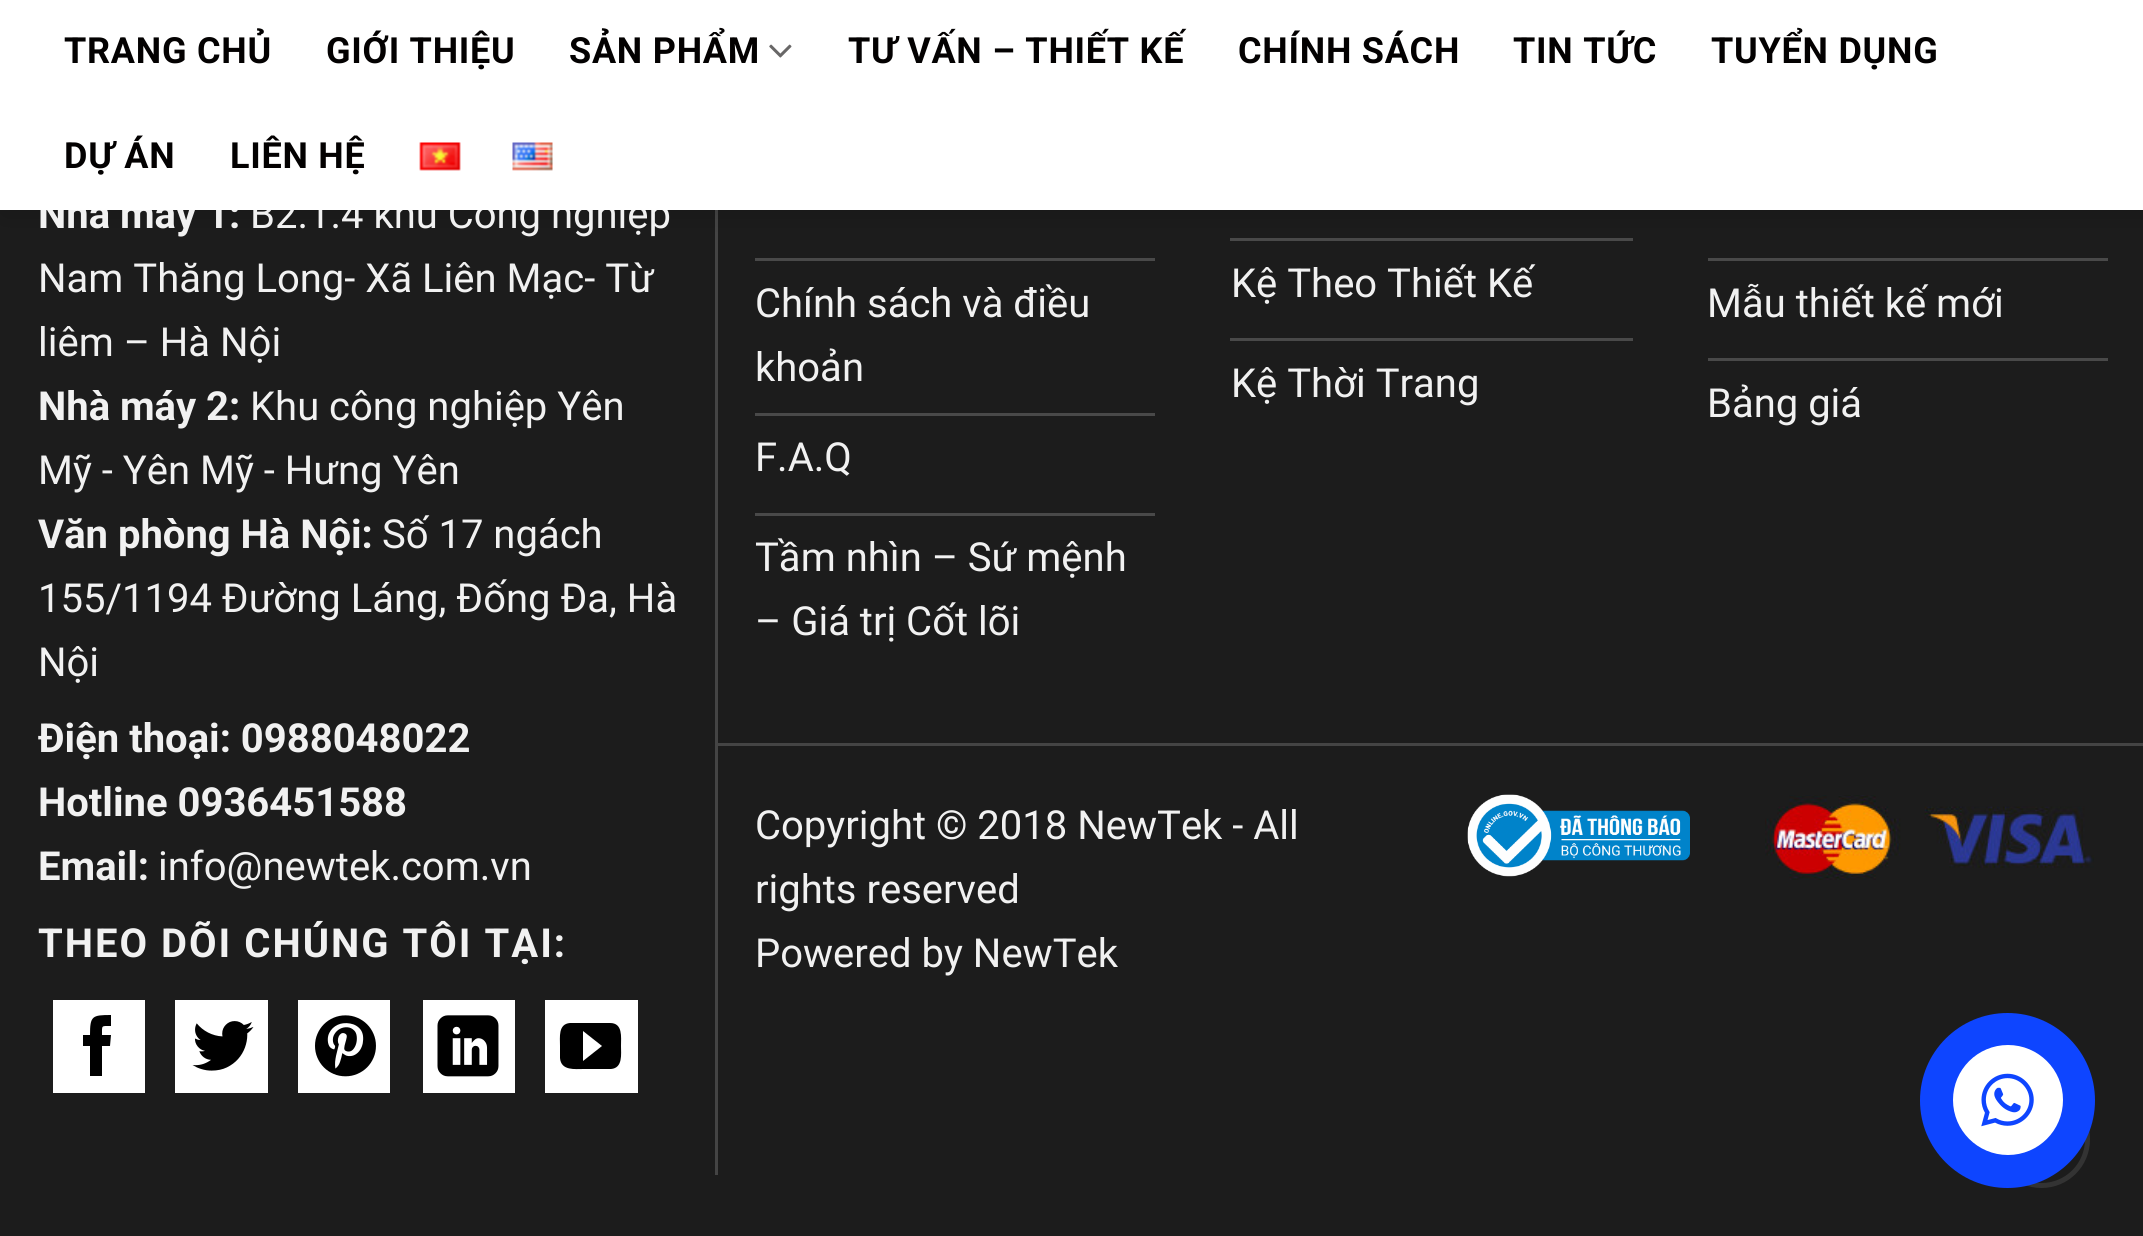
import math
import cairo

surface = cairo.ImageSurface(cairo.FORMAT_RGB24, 2143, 1236)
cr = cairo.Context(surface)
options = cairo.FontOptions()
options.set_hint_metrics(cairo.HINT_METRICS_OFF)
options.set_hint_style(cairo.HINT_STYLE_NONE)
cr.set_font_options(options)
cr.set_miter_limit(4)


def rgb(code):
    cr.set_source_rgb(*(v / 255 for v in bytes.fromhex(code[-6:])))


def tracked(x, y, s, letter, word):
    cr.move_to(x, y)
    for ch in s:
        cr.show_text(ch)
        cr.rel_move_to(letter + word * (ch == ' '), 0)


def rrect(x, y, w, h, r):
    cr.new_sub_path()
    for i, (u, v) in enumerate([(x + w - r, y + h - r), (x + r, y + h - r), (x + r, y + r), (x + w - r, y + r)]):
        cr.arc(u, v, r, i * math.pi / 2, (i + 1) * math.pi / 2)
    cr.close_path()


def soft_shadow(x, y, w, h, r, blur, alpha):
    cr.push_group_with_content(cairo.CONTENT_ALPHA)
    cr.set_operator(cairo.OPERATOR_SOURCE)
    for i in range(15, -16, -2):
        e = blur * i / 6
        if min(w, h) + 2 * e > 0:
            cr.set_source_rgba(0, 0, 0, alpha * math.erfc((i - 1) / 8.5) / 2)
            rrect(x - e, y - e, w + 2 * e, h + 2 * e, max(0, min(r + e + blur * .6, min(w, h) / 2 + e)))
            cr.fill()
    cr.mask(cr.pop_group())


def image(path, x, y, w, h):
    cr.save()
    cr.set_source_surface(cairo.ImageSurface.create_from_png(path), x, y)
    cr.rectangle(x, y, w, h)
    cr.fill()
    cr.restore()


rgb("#1c1c1c")
cr.paint()
rgb("#444444")
cr.rectangle(715, 210, 3, 965)
cr.fill()
rgb("#494949")
cr.rectangle(1230, 238, 403, 3)
cr.fill()
rgb("#000000")
soft_shadow(3, 3, 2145, 210, 0, 12.5, 0.15)
rgb("#ffffff")
cr.rectangle(53, 1000, 92, 93)
cr.fill()
rgb("#000000")
cr.new_path()
cr.move_to(102, 1076)
cr.line_to(90, 1076)
cr.line_to(90, 1046)
cr.line_to(83, 1046)
cr.line_to(83, 1035)
cr.line_to(90, 1035)
cr.curve_to(90, 1016, 92, 1015, 111, 1015)
cr.line_to(111, 1026)
cr.curve_to(101, 1026, 102, 1025, 102, 1035)
cr.line_to(111, 1035)
cr.line_to(110, 1046)
cr.line_to(102, 1046)
cr.close_path()
cr.fill()
rgb("#ffffff")
cr.rectangle(175, 1000, 93, 93)
cr.fill()
image("img/4.png", 192, 1021, 62, 50)
cr.rectangle(298, 1000, 92, 93)
cr.fill()
image("img/5.png", 315, 1015, 61, 62)
cr.rectangle(423, 1000, 92, 93)
cr.fill()
image("img/6.png", 437, 1015, 62, 62)
cr.rectangle(545, 1000, 93, 93)
cr.fill()
rgb("#000000")
cr.new_path()
cr.move_to(610, 1023)
cr.line_to(570, 1023)
cr.curve_to(558, 1024, 560, 1037, 560, 1046)
cr.line_to(560, 1058)
cr.curve_to(561, 1071, 575, 1069, 584, 1069)
cr.line_to(611, 1069)
cr.curve_to(623, 1068, 621, 1054, 621, 1046)
cr.curve_to(621, 1037, 623, 1023, 610, 1023)
cr.close_path()
cr.move_to(583, 1061)
cr.line_to(583, 1031)
cr.line_to(602, 1046)
cr.close_path()
cr.fill()
for x, y, w, h, color in [
    (755, 258, 400, 3, "#494949"),
    (755, 413, 400, 3, "#494949"),
    (755, 513, 400, 3, "#494949"),
    (1230, 338, 403, 3, "#494949"),
    (1708, 258, 400, 3, "#494949"),
    (1708, 358, 400, 3, "#494949"),
    (718, 743, 1425, 3, "#444444"),
]:
    rgb(color)
    cr.rectangle(x, y, w, h)
    cr.fill()
image("img/7.png", 1467, 794, 223, 83)
image("img/8.png", 1765, 795, 329, 85)
rrect(1995.5, 1092.5, 92, 93, 46)
rgb("#333333")
cr.set_line_width(5)
cr.stroke()
rgb("#0e45ff")
cr.arc(2007.5, 1100.5, 87.5, 0, 2 * math.pi)
cr.fill()
rgb("#ffffff")
cr.arc(2008, 1100, 55, 0, 2 * math.pi)
cr.fill()
image("img/9.png", 1981, 1073, 53, 54)
cr.select_font_face("Roboto", cairo.FONT_SLANT_NORMAL, cairo.FONT_WEIGHT_BOLD)
cr.set_font_size(40)
rgb("#f1f1f1")
cr.move_to(38, 228)
cr.show_text("Nhà máy 1:")
cr.select_font_face("Roboto")
cr.move_to(250, 228)
cr.show_text("B2.1.4 khu Công nghiệp")
rgb("#ffffff")
cr.rectangle(0, 0, 2143, 210)
cr.fill()
image("img/3.png", 512, 142, 41, 29)
image("img/2.png", 419, 142, 42, 29)
cr.select_font_face("Roboto", cairo.FONT_SLANT_NORMAL, cairo.FONT_WEIGHT_BOLD)
cr.set_font_size(36)
rgb("#030101")
for x, y, s in [
    (230, 168, "LIÊN HỆ"),
    (64, 168, "DỰ ÁN"),
    (1711, 63, "TUYỂN DỤNG"),
    (1513, 63, "TIN TỨC"),
    (1238, 63, "CHÍNH SÁCH"),
    (848, 63, "TƯ VẤN – THIẾT KẾ"),
]:
    tracked(x, y, s, 0.75, 0)
image("img/1.png", 769, 44, 23, 14)
for x, y, s in [
    (569, 63, "SẢN PHẨM"),
    (326, 63, "GIỚI THIỆU"),
    (64, 63, "TRANG CHỦ"),
]:
    tracked(x, y, s, 0.75, 0)
cr.select_font_face("Roboto")
cr.set_font_size(40)
rgb("#f1f1f1")
cr.move_to(38, 292)
cr.show_text("Nam Thăng Long- Xã Liên Mạc- Từ")
cr.move_to(38, 356)
cr.show_text("liêm – Hà Nội")
cr.select_font_face("Roboto", cairo.FONT_SLANT_NORMAL, cairo.FONT_WEIGHT_BOLD)
cr.move_to(38, 420)
cr.show_text("Nhà máy 2:")
cr.select_font_face("Roboto")
cr.move_to(250, 420)
cr.show_text("Khu công nghiệp Yên")
cr.move_to(38, 484)
cr.show_text("Mỹ - Yên Mỹ - Hưng Yên")
cr.select_font_face("Roboto", cairo.FONT_SLANT_NORMAL, cairo.FONT_WEIGHT_BOLD)
cr.move_to(38, 548)
cr.show_text("Văn phòng Hà Nội:")
cr.select_font_face("Roboto")
for x, y, s in [
    (382, 548, "Số 17 ngách"),
    (38, 612, "155/1194 Đường Láng, Đống Đa, Hà"),
    (38, 676, "Nội"),
]:
    cr.move_to(x, y)
    cr.show_text(s)
cr.select_font_face("Roboto", cairo.FONT_SLANT_NORMAL, cairo.FONT_WEIGHT_BOLD)
for x, y, s in [
    (38, 752, "Điện thoại: 0988048022"),
    (38, 816, "Hotline 0936451588"),
    (38, 880, "Email:"),
]:
    cr.move_to(x, y)
    cr.show_text(s)
cr.select_font_face("Roboto")
cr.move_to(158, 880)
cr.show_text("info@newtek.com.vn")
cr.select_font_face("Roboto", cairo.FONT_SLANT_NORMAL, cairo.FONT_WEIGHT_BOLD)
tracked(38, 957, "THEO DÕI CHÚNG TÔI TẠI:", 2, 0)
cr.select_font_face("Roboto")
for x, y, s in [
    (755, 317, "Chính sách và điều"),
    (755, 381, "khoản"),
    (755, 471, "F.A.Q"),
    (755, 571, "Tầm nhìn – Sứ mệnh"),
    (755, 635, "– Giá trị Cốt lõi"),
    (1231, 297, "Kệ Theo Thiết Kế"),
    (1231, 397, "Kệ Thời Trang"),
    (1707, 317, "Mẫu thiết kế mới"),
    (1707, 417, "Bảng giá"),
    (755, 839, "Copyright © 2018 NewTek - All"),
    (755, 903, "rights reserved"),
    (755, 967, "Powered by NewTek"),
]:
    cr.move_to(x, y)
    cr.show_text(s)
surface.write_to_png("page.png")
